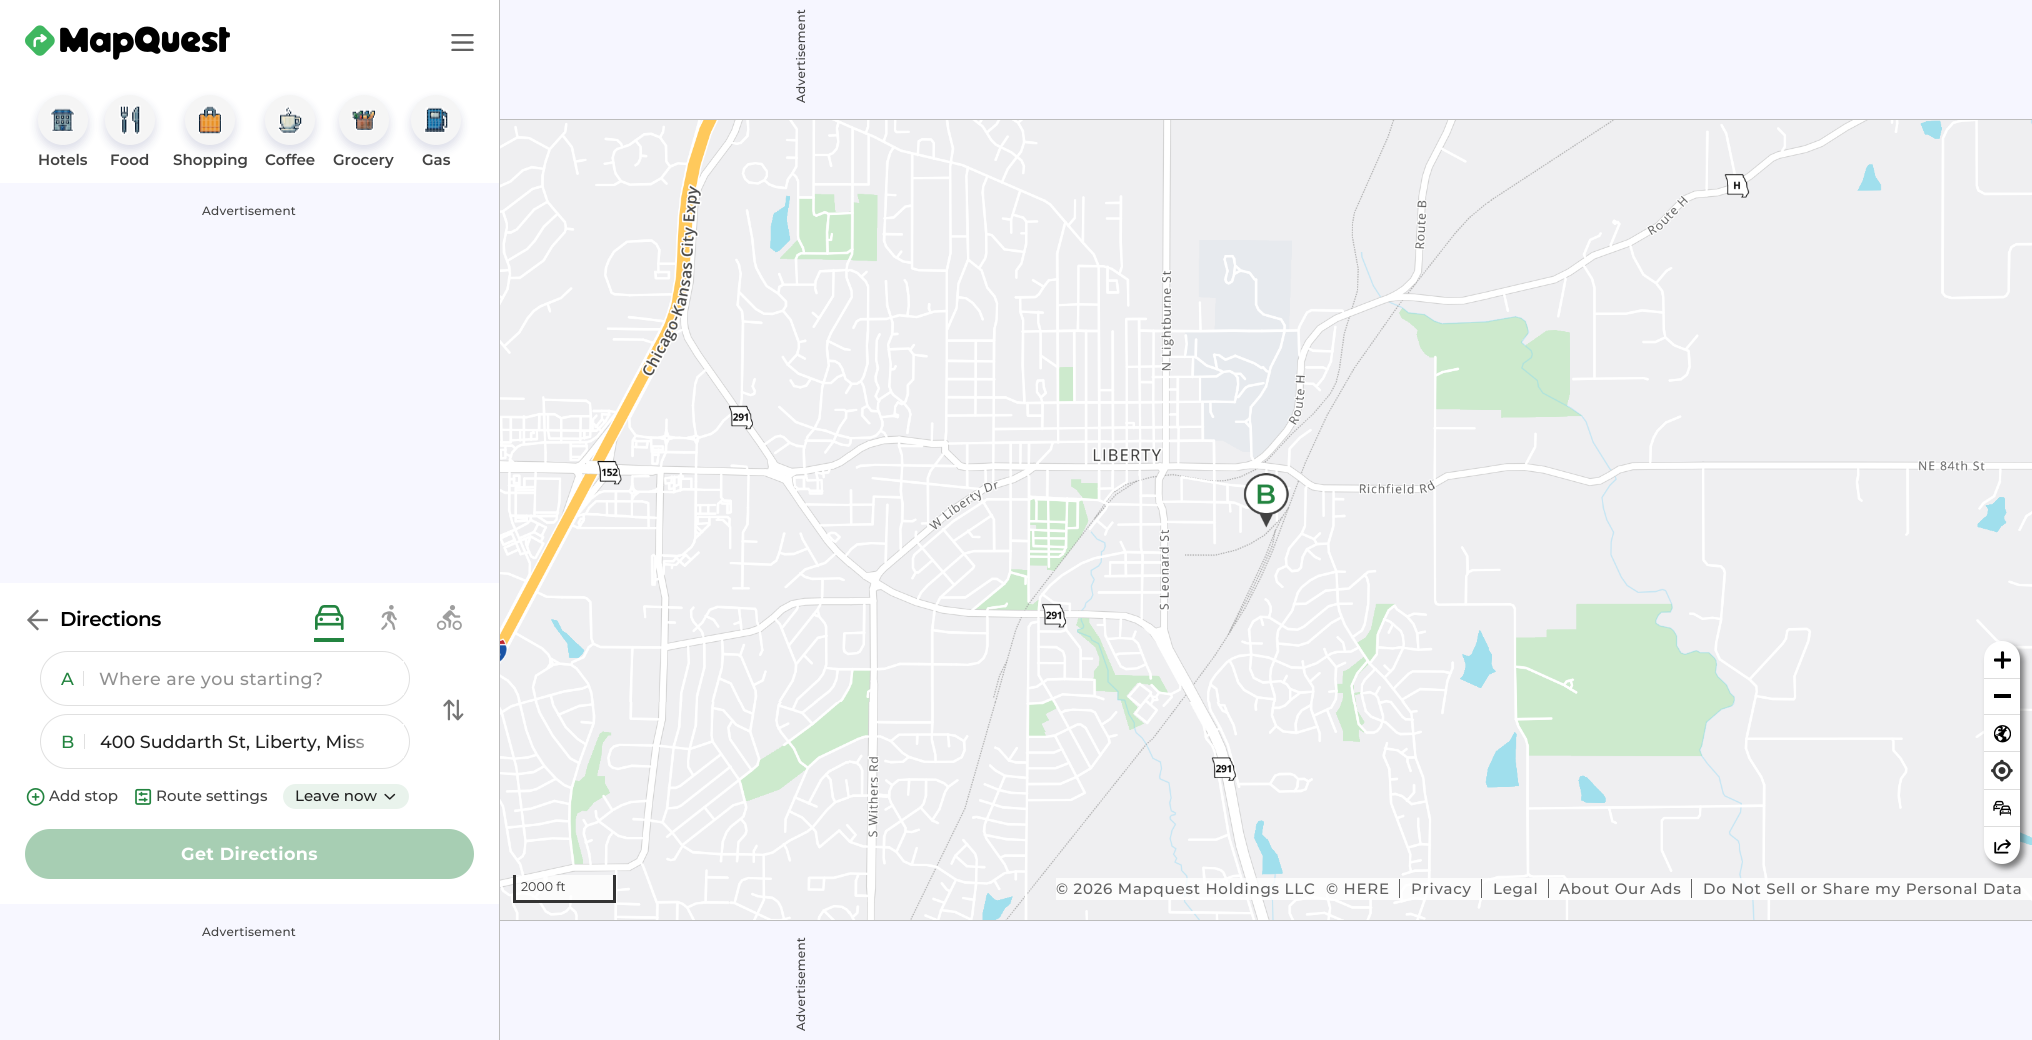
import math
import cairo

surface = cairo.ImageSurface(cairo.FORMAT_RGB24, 2032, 1040)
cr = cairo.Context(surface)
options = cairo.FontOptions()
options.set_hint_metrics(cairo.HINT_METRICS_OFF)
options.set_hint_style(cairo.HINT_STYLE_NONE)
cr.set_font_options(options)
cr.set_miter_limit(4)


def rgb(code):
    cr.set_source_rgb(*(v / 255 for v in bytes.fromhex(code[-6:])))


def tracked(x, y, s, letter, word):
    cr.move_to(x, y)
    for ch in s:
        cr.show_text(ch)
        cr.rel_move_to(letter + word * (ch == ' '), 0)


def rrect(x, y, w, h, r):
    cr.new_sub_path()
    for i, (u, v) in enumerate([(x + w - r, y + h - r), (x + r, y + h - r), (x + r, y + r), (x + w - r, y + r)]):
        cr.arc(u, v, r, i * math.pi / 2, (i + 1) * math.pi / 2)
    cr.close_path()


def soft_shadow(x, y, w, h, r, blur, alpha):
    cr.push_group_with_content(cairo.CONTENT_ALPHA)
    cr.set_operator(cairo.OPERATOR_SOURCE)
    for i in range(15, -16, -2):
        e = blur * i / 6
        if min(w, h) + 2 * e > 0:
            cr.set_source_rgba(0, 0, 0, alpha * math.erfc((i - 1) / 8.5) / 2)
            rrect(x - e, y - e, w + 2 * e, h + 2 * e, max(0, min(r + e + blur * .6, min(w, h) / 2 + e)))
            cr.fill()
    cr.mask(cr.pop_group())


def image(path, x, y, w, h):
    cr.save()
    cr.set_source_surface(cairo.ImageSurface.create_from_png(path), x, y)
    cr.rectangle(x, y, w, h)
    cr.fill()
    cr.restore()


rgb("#ffffff")
cr.paint()
for x, y, w, h, color in [
    (500, 0, 1532, 119, "#f6f6ff"),
    (500, 119, 1532, 1, "#bdbdbd"),
    (499, 0, 1, 1040, "#bdbdbd"),
]:
    rgb(color)
    cr.rectangle(x, y, w, h)
    cr.fill()
image("img/1.png", 25, 25, 205, 35)
image("img/2.png", 451, 34, 23, 17)
rgb("#0d1660")
soft_shadow(38, 100, 50, 50, 25, 5, 0.15)
rgb("#f5f5f5")
cr.arc(63, 120, 25, 0, 2 * math.pi)
cr.fill()
image("img/3.png", 50, 108, 25, 24)
rgb("#0d1660")
soft_shadow(105, 100, 50, 50, 25, 5, 0.15)
rgb("#f5f5f5")
cr.arc(130, 120, 25, 0, 2 * math.pi)
cr.fill()
image("img/4.png", 119, 105, 22, 30)
rgb("#0d1660")
soft_shadow(185, 100, 50, 50, 25, 5, 0.15)
rgb("#f5f5f5")
cr.arc(210, 120, 25, 0, 2 * math.pi)
cr.fill()
image("img/5.png", 198, 106, 24, 28)
rgb("#0d1660")
soft_shadow(265, 100, 50, 50, 25, 5, 0.15)
rgb("#f5f5f5")
cr.arc(290, 120, 25, 0, 2 * math.pi)
cr.fill()
image("img/6.png", 278, 106, 24, 28)
rgb("#0d1660")
soft_shadow(339, 100, 50, 50, 25, 5, 0.15)
rgb("#f5f5f5")
cr.arc(364, 120, 25, 0, 2 * math.pi)
cr.fill()
image("img/7.png", 351, 109, 25, 22)
rgb("#0d1660")
soft_shadow(411, 100, 50, 50, 25, 5, 0.15)
rgb("#f5f5f5")
cr.arc(436, 120, 25, 0, 2 * math.pi)
cr.fill()
image("img/8.png", 424, 107, 25, 26)
rgb("#f7f7ff")
cr.rectangle(0, 183, 499, 400)
cr.fill()
image("img/9.png", 27, 609, 21, 22)
rgb("#238440")
cr.rectangle(314, 638, 30, 4)
cr.fill()
image("img/10.png", 315, 605, 29, 25)
image("img/11.png", 381, 605, 16, 25)
image("img/12.png", 436, 605, 26, 25)
rrect(40.5, 651.5, 369, 54, 27)
rgb("#e0e0e0")
cr.set_line_width(1)
cr.stroke()
cr.rectangle(83, 671, 1, 15)
cr.fill()
gradient = cairo.LinearGradient(404, 679, 344, 679)
gradient.add_color_stop_rgba(0, 1, 1, 1, 1)
gradient.add_color_stop_rgba(0.6, 1, 1, 1, 0.7)
gradient.add_color_stop_rgba(1, 1, 1, 1, 0)
cr.set_source(gradient)
cr.rectangle(402, 661, 2, 34)
cr.fill()
image("img/13.png", 443, 699, 21, 22)
rrect(40.5, 714.5, 369, 54, 27)
rgb("#e0e0e0")
cr.stroke()
cr.rectangle(84, 734, 1, 15)
cr.fill()
image("img/14.png", 26, 788, 19, 18)
image("img/15.png", 135, 788, 17, 17)
rgb("#e9f3ec")
rrect(283, 784, 126, 25, 12.5)
cr.fill()
image("img/16.png", 384, 793, 12, 7)
rgb("#a7ceb3")
rrect(25, 829, 449, 50, 25)
cr.fill()
rgb("#f7f7ff")
cr.rectangle(0, 904, 499, 136)
cr.fill()
image("img/17.png", 500, 120, 1532, 800)
rgb("#000000")
soft_shadow(1988, 645, 36, 223, 18, 3, 0.5)
rgb("#ffffff")
rrect(1984, 641, 36, 223, 18)
cr.fill()
rgb("#dddddd")
cr.rectangle(1984, 714, 36, 1)
cr.fill()
image("img/18.png", 1994, 651, 17, 18)
for x, y, w, h, color in [
    (1984, 678, 36, 1, "#dddddd"),
    (1994, 694, 17, 4, "#000000"),
    (1984, 751, 36, 1, "#dddddd"),
]:
    rgb(color)
    cr.rectangle(x, y, w, h)
    cr.fill()
image("img/19.png", 1994, 725, 17, 18)
cr.rectangle(1984, 789, 36, 1)
cr.fill()
image("img/20.png", 1991, 759, 22, 23)
cr.rectangle(1984, 826, 36, 1)
cr.fill()
image("img/21.png", 1993, 800, 18, 16)
image("img/22.png", 1994, 839, 17, 15)
cr.set_source_rgba(1, 1, 1, 0.75)
cr.rectangle(516, 875, 97, 25)
cr.fill()
rgb("#333333")
cr.rectangle(613, 875, 3, 28)
cr.rectangle(513, 900, 102, 3)
cr.rectangle(513, 875, 3, 28)
cr.fill()
cr.set_source_rgba(1, 1, 1, 0.8)
cr.rectangle(1056, 878, 976, 22)
cr.fill()
rgb("#616161")
cr.rectangle(1399, 879, 1, 19)
cr.rectangle(1481, 879, 1, 19)
cr.rectangle(1548, 879, 1, 19)
cr.rectangle(1691, 879, 1, 19)
cr.fill()
rgb("#f6f6ff")
cr.rectangle(500, 921, 1532, 119)
cr.fill()
rgb("#bdbdbd")
cr.rectangle(500, 920, 1532, 1)
cr.fill()
cr.select_font_face("Montserrat Medium")
cr.set_font_size(12)
rgb("#424242")
cr.save()
cr.translate(805, 103)
cr.rotate(-90 * math.pi / 180)
tracked(0, 0, "Advertisement", 0.25, 0)
cr.restore()
cr.select_font_face("Montserrat SemiBold")
cr.set_font_size(15)
for x, y, s in [
    (38, 165, "Hotels"),
    (110, 165, "Food"),
    (173, 165, "Shopping"),
    (265, 165, "Coffee"),
    (333, 165, "Grocery"),
    (422, 165, "Gas"),
]:
    cr.move_to(x, y)
    cr.show_text(s)
cr.select_font_face("Montserrat Medium")
cr.set_font_size(12)
tracked(202, 215, "Advertisement", 0.25, 0)
cr.select_font_face("Montserrat SemiBold")
cr.set_font_size(20)
rgb("#000000")
tracked(60, 626, "Directions", -0.5, 0)
cr.select_font_face("Montserrat Medium")
cr.set_font_size(17.5)
rgb("#238440")
cr.move_to(61, 685)
cr.show_text("A")
rgb("#909090")
tracked(99, 685, "Where are you starting?", 0.4, 0)
rgb("#238440")
cr.move_to(61, 748)
cr.show_text("B")
rgb("#212121")
cr.move_to(100, 748)
cr.show_text("400 Suddarth St, Liberty, Miss")
gradient = cairo.LinearGradient(404, 741, 344, 741)
gradient.add_color_stop_rgba(0, 1, 1, 1, 1)
gradient.add_color_stop_rgba(0.6, 1, 1, 1, 0.7)
gradient.add_color_stop_rgba(1, 1, 1, 1, 0)
cr.set_source(gradient)
cr.rectangle(347, 724, 57, 34)
cr.fill()
cr.set_font_size(15)
rgb("#424242")
cr.move_to(49, 801)
cr.show_text("Add stop")
cr.move_to(156, 801)
cr.show_text("Route settings")
rgb("#212121")
cr.move_to(295, 801)
cr.show_text("Leave now")
cr.select_font_face("Montserrat", cairo.FONT_SLANT_NORMAL, cairo.FONT_WEIGHT_BOLD)
cr.set_font_size(17.5)
rgb("#ffffff")
tracked(181, 860, "Get Directions", 0.4, 0)
cr.select_font_face("Montserrat Medium")
cr.set_font_size(12)
rgb("#424242")
tracked(202, 936, "Advertisement", 0.25, 0)
cr.select_font_face("Montserrat")
cr.set_font_size(12.5)
rgb("#333333")
cr.move_to(521, 891)
cr.show_text("2000 ft")
cr.select_font_face("Montserrat Medium")
cr.set_font_size(15)
rgb("#616161")
for x, y, s in [
    (1056, 894, "© 2026 Mapquest Holdings LLC"),
    (1326, 894, "© HERE"),
    (1411, 894, "Privacy"),
    (1493, 894, "Legal"),
    (1559, 894, "About Our Ads"),
    (1703, 894, "Do Not Sell or Share my Personal Data"),
]:
    tracked(x, y, s, 0.75, 0)
cr.set_font_size(12)
rgb("#424242")
cr.save()
cr.translate(805, 1031)
cr.rotate(-90 * math.pi / 180)
tracked(0, 0, "Advertisement", 0.25, 0)
cr.restore()
surface.write_to_png("page.png")
